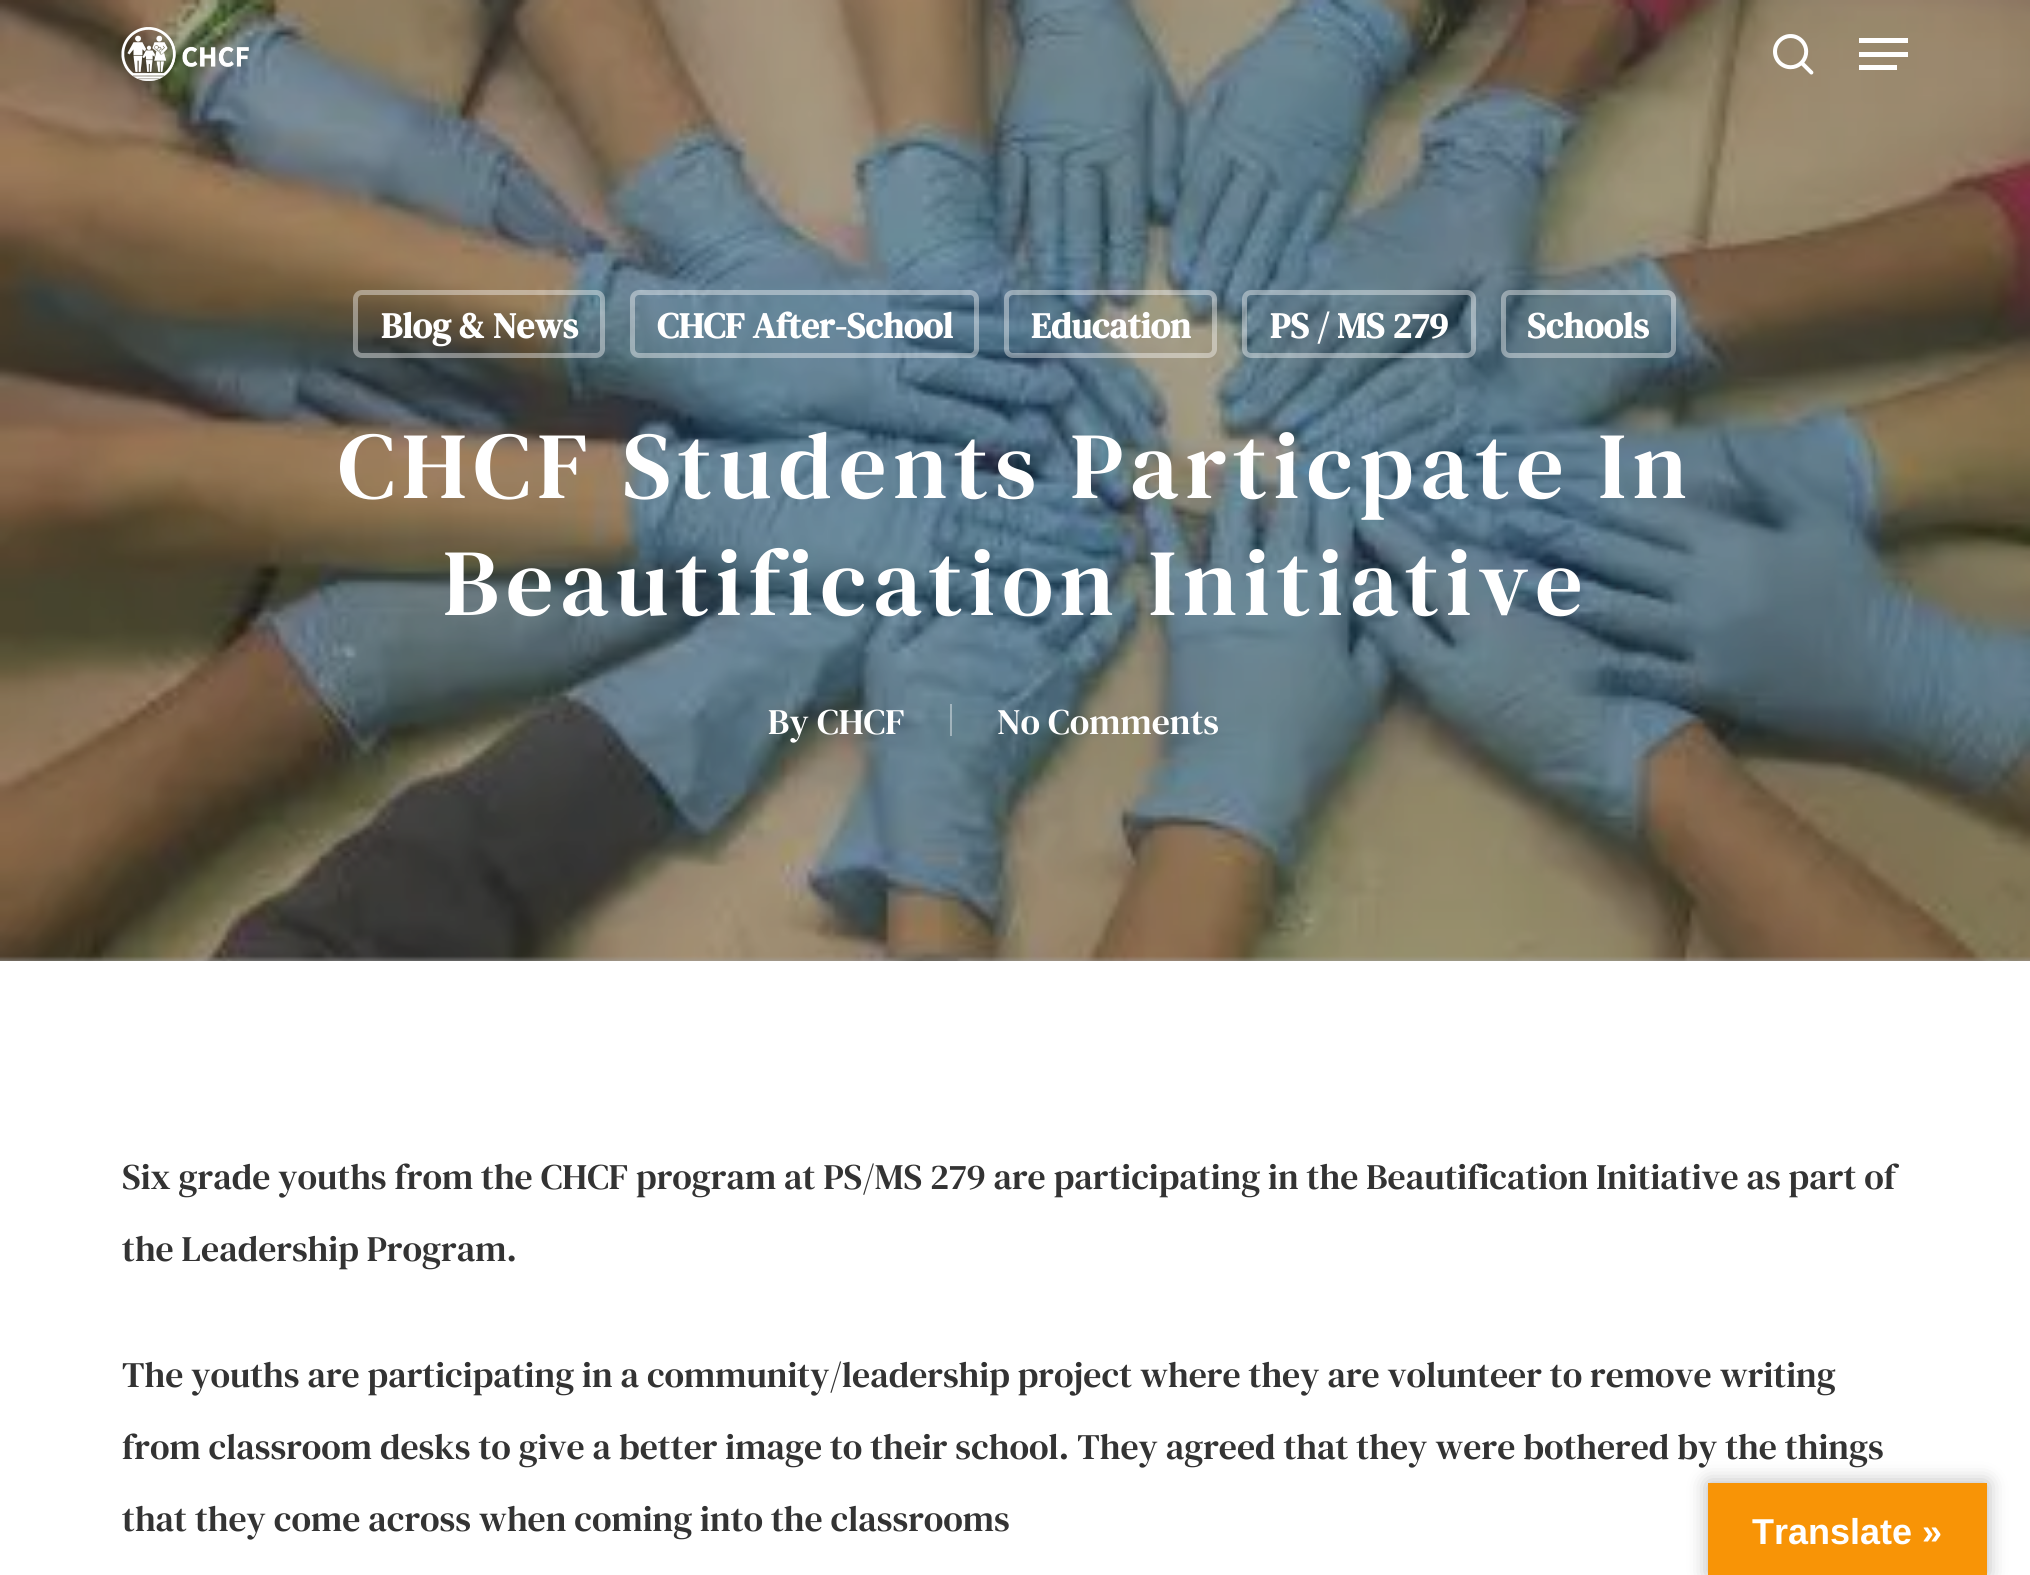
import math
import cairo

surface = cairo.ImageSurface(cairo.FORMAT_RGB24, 2030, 1575)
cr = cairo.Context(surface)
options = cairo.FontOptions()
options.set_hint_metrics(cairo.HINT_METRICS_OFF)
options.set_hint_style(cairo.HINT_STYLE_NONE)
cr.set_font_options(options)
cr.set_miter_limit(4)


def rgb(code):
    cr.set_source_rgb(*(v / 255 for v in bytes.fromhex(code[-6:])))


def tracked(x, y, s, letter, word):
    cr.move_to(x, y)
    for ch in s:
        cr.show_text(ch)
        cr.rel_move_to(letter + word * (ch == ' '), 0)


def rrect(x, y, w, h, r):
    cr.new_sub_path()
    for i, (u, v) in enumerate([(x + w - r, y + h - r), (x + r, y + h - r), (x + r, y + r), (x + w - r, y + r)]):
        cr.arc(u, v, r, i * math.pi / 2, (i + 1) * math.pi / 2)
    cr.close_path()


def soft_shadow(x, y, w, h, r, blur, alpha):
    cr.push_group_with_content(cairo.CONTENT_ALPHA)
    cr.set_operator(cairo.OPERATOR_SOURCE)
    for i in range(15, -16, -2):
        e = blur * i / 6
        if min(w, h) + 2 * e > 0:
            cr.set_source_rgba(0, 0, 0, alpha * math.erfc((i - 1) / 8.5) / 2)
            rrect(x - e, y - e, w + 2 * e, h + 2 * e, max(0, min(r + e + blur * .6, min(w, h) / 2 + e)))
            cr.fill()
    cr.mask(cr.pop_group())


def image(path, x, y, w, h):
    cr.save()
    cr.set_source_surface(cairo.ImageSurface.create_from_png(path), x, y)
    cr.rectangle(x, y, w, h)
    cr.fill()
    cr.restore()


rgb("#ffffff")
cr.paint()
rgb("#a5a5a5")
cr.rectangle(0, 956, 2030, 5)
cr.fill()
image("img/3.png", 0, 0, 2030, 961)
image("img/1.png", 121, 27, 128, 54)
image("img/2.png", 1773, 34, 41, 41)
for x, y, w, h, color in [
    (1859, 38, 49, 5, "#ffffff"),
    (1859, 65, 38, 5, "#ffffff"),
    (1859, 52, 49, 5, "#ffffff"),
]:
    rgb(color)
    cr.rectangle(x, y, w, h)
    cr.fill()
rrect(355.5, 292.5, 247, 63, 6.5)
cr.set_source_rgba(1, 1, 1, 0.4)
cr.set_line_width(5)
cr.stroke()
rrect(632.5, 292.5, 344, 63, 6.5)
cr.stroke()
rrect(1006.5, 292.5, 208, 63, 6.5)
cr.stroke()
rrect(1244.5, 292.5, 229, 63, 6.5)
cr.stroke()
rrect(1503.5, 292.5, 170, 63, 6.5)
cr.stroke()
cr.rectangle(950, 704, 2, 32)
cr.fill()
rgb("#000000")
soft_shadow(1708, 1483, 279, 92, 0, 10, 0.3)
rgb("#f89406")
cr.rectangle(1708, 1483, 279, 92)
cr.fill()
cr.select_font_face("DM Serif Text", cairo.FONT_SLANT_NORMAL, cairo.FONT_WEIGHT_BOLD)
cr.set_font_size(36)
rgb("#ffffff")
for x, y, s in [
    (381, 338, "Blog & News"),
    (657, 338, "CHCF After-School"),
    (1031, 338, "Education"),
    (1270, 338, "PS / MS 279"),
    (1527, 338, "Schools"),
]:
    cr.move_to(x, y)
    cr.show_text(s)
cr.select_font_face("DM Serif Text")
cr.set_font_size(94.5)
tracked(338, 498, "CHCF Students Particpate In", 6.75, 0)
tracked(443, 615, "Beautification Initiative", 6.75, 0)
cr.set_font_size(36)
for x, y, s in [
    (768, 734, "By"),
    (817, 734, "CHCF"),
    (997, 734, "No Comments"),
]:
    cr.move_to(x, y)
    cr.show_text(s)
rgb("#333333")
for x, y, s in [
    (122, 1189, "Six grade youths from the CHCF program at PS/MS 279 are participating in the Beautification Initiative as part of"),
    (122, 1261, "the Leadership Program."),
    (122, 1387, "The youths are participating in a community/leadership project where they are volunteer to remove writing"),
    (122, 1459, "from classroom desks to give a better image to their school. They agreed that they were bothered by the things"),
    (122, 1531, "that they come across when coming into the classrooms"),
]:
    cr.move_to(x, y)
    cr.show_text(s)
cr.select_font_face("Liberation Sans", cairo.FONT_SLANT_NORMAL, cairo.FONT_WEIGHT_BOLD)
rgb("#ffffff")
cr.move_to(1752, 1544)
cr.show_text("Translate »")
surface.write_to_png("page.png")
